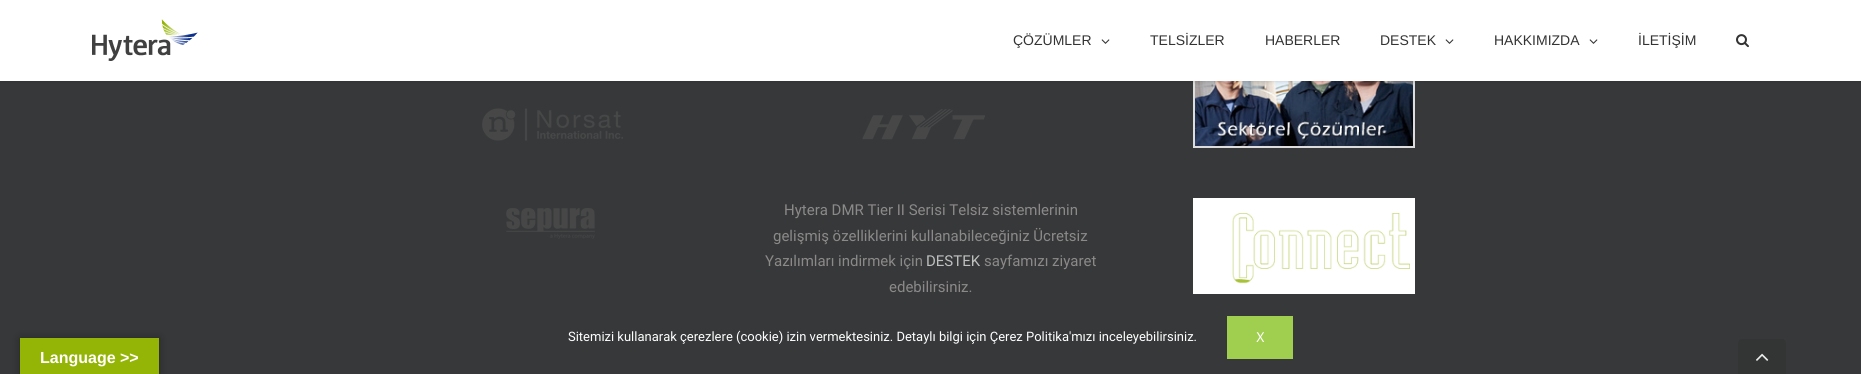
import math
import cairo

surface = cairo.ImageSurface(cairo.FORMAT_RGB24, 1861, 374)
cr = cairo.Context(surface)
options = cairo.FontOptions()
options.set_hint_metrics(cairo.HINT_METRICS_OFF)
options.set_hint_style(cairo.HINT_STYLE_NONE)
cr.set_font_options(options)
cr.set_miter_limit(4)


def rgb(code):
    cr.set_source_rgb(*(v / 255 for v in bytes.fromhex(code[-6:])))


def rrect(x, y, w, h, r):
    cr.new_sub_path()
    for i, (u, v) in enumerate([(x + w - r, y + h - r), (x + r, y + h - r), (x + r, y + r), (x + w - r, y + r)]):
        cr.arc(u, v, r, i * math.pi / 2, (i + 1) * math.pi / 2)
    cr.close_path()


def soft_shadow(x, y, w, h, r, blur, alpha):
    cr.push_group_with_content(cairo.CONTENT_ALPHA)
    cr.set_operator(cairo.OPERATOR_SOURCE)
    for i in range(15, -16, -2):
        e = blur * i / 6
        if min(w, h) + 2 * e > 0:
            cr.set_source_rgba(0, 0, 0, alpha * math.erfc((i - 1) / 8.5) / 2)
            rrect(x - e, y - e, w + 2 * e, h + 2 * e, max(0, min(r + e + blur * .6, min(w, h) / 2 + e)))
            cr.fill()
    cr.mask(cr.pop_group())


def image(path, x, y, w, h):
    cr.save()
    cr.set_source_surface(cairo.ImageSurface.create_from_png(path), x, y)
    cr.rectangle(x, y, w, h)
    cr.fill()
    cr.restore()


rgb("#363839")
cr.paint()
cr.rectangle(1194, 3, 220, 144)
rgb("#dddddd")
cr.stroke()
image("img/6.png", 1195, 81, 218, 65)
rgb("#000000")
soft_shadow(0, 1, 1861, 81, 0, 1.5, 0.12)
rgb("#ffffff")
cr.rectangle(0, 0, 1861, 81)
cr.fill()
image("img/1.png", 92, 19, 106, 42)
image("img/2.png", 1101, 39, 9, 5)
image("img/2.png", 1445, 39, 9, 5)
image("img/2.png", 1589, 39, 9, 5)
image("img/3.png", 1736, 34, 13, 14)
image("img/4.png", 482, 108, 141, 33)
image("img/5.png", 506, 208, 89, 31)
image("img/7.png", 1193, 198, 222, 96)
image("img/8.png", 862, 109, 123, 31)
rgb("#a0ce4e")
cr.rectangle(1227, 316, 66, 43)
cr.fill()
rgb("#000000")
soft_shadow(20, 338, 139, 36, 0, 4.5, 0.3)
rgb("#94b506")
cr.rectangle(20, 338, 139, 36)
cr.fill()
rgb("#333434")
cr.new_path()
cr.move_to(1742, 339)
cr.line_to(1782, 339)
cr.curve_to(1784, 339, 1786, 341, 1786, 343)
cr.line_to(1786, 374)
cr.line_to(1738, 374)
cr.line_to(1738, 343)
cr.curve_to(1738, 341, 1740, 339, 1742, 339)
cr.close_path()
cr.fill()
image("img/9.png", 1756, 353, 13, 8)
cr.select_font_face("Liberation Sans")
cr.set_font_size(14)
rgb("#333333")
for x, y, s in [
    (1013, 45, "ÇÖZÜMLER"),
    (1150, 45, "TELSİZLER"),
    (1265, 45, "HABERLER"),
    (1380, 45, "DESTEK"),
    (1494, 45, "HAKKIMIZDA"),
    (1638, 45, "İLETİŞİM"),
]:
    cr.move_to(x, y)
    cr.show_text(s)
cr.select_font_face("Roboto")
cr.set_font_size(15)
rgb("#8c8989")
for x, y, s in [
    (784, 215, "Hytera DMR Tier II Serisi Telsiz sistemlerinin"),
    (773, 241, "gelişmiş özelliklerini kullanabileceğiniz Ücretsiz"),
    (765, 266, "Yazılımları indirmek için"),
]:
    cr.move_to(x, y)
    cr.show_text(s)
rgb("#bfbfbf")
cr.move_to(926, 266)
cr.show_text("DESTEK")
rgb("#8c8989")
cr.move_to(984, 266)
cr.show_text("sayfamızı ziyaret")
cr.move_to(889, 292)
cr.show_text("edebilirsiniz.")
cr.set_font_size(13)
rgb("#ffffff")
cr.move_to(568, 341)
cr.show_text("Sitemizi kullanarak çerezlere (cookie) izin vermektesiniz. Detaylı bilgi için Çerez Politika'mızı inceleyebilirsiniz.")
cr.select_font_face("PT Sans")
cr.set_font_size(14)
cr.move_to(1256, 342)
cr.show_text("X")
cr.select_font_face("Liberation Sans", cairo.FONT_SLANT_NORMAL, cairo.FONT_WEIGHT_BOLD)
cr.set_font_size(16)
cr.move_to(40, 363)
cr.show_text("Language >>")
surface.write_to_png("page.png")
